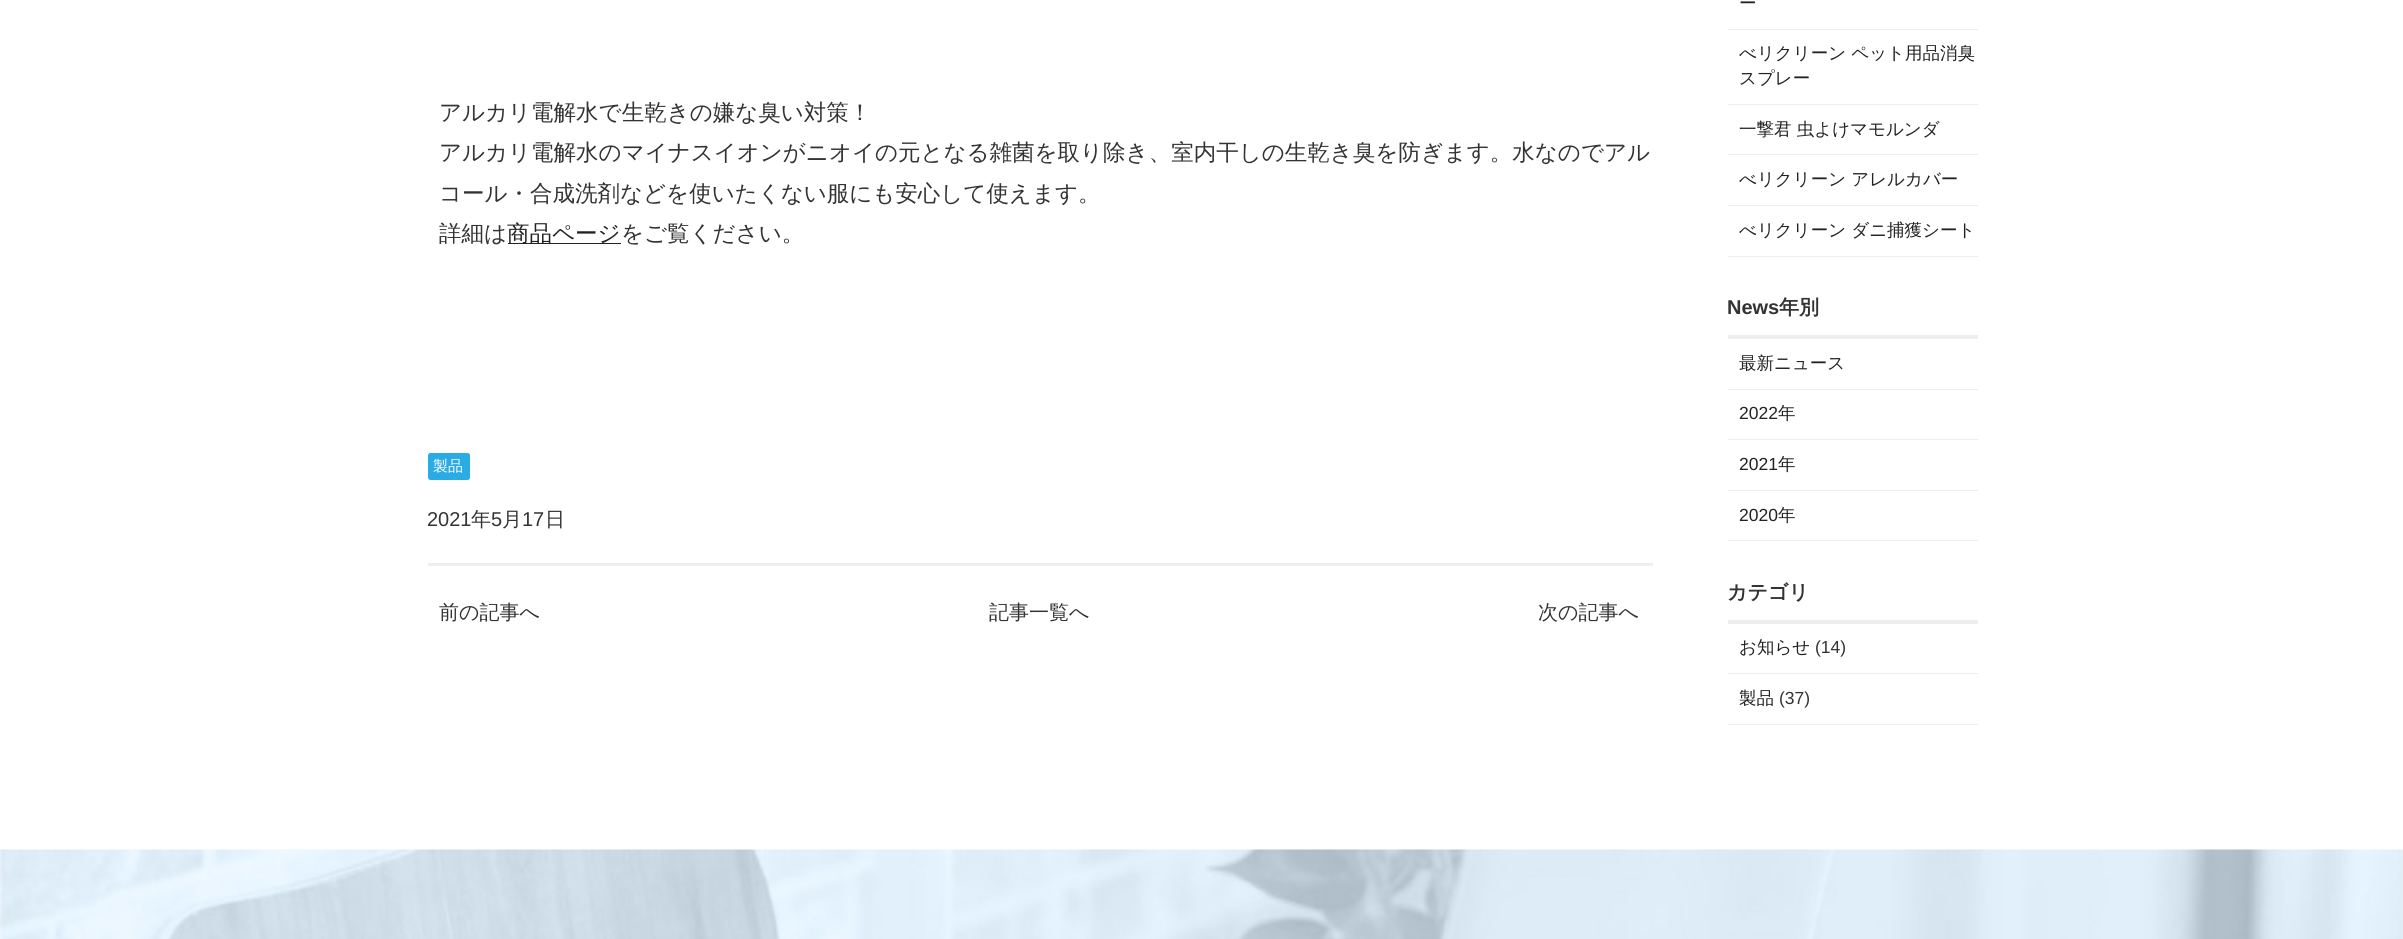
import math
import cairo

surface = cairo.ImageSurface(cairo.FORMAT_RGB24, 2403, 939)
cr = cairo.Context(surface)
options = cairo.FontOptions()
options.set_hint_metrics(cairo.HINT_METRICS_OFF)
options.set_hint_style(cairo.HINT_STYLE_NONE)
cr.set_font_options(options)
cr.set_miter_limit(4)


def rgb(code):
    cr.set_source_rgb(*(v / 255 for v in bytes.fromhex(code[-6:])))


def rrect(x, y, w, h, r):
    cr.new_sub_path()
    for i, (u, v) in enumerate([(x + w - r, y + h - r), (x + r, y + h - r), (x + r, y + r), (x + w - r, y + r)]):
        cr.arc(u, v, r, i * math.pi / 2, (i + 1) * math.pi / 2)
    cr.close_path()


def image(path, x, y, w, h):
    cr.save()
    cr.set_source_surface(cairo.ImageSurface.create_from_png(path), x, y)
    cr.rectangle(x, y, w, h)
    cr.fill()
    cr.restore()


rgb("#ffffff")
cr.paint()
rgb("#222222")
cr.rectangle(508, 243, 113, 1)
cr.fill()
rgb("#2aabe4")
rrect(428, 453, 42, 27, 2.5)
cr.fill()
for x, y, w, h, color in [
    (428, 563, 1225, 3, "#eeeeee"),
    (1728, 29, 250, 1, "#eeeeee"),
    (1728, 104, 250, 1, "#eeeeee"),
    (1728, 154, 250, 1, "#eeeeee"),
    (1728, 205, 250, 1, "#eeeeee"),
    (1728, 256, 250, 1, "#eeeeee"),
    (1728, 335, 250, 4, "#eeeeee"),
    (1728, 389, 250, 1, "#eeeeee"),
    (1728, 439, 250, 1, "#eeeeee"),
    (1728, 490, 250, 1, "#eeeeee"),
    (1728, 540, 250, 1, "#eeeeee"),
    (1728, 620, 250, 4, "#eeeeee"),
    (1728, 673, 250, 1, "#eeeeee"),
    (1728, 724, 250, 1, "#eeeeee"),
]:
    rgb(color)
    cr.rectangle(x, y, w, h)
    cr.fill()
image("img/1.png", 0, 849, 2403, 90)
cr.select_font_face("WenQuanYi Zen Hei Medium")
cr.set_font_size(22.5)
rgb("#333333")
for x, y, s in [
    (439, 120, "アルカリ電解水で生乾きの嫌な臭い対策！"),
    (439, 160, "アルカリ電解水のマイナスイオンがニオイの元となる雑菌を取り除き、室内干しの生乾き臭を防ぎます。水なのでアル"),
    (439, 201, "コール・合成洗剤などを使いたくない服にも安心して使えます。"),
    (439, 241, "詳細は"),
]:
    cr.move_to(x, y)
    cr.show_text(s)
rgb("#222222")
cr.move_to(507, 241)
cr.show_text("商品ページ")
rgb("#333333")
cr.move_to(621, 241)
cr.show_text("をご覧ください。")
cr.set_font_size(15)
rgb("#ffffff")
cr.move_to(433, 471)
cr.show_text("製品")
cr.select_font_face("Liberation Sans")
cr.set_font_size(20)
rgb("#333333")
cr.move_to(427, 526)
cr.show_text("2021")
cr.select_font_face("WenQuanYi Zen Hei Medium")
cr.move_to(471, 526)
cr.show_text("年")
cr.select_font_face("Liberation Sans")
cr.move_to(491, 526)
cr.show_text("5")
cr.select_font_face("WenQuanYi Zen Hei Medium")
cr.move_to(502, 526)
cr.show_text("月")
cr.select_font_face("Liberation Sans")
cr.move_to(522, 526)
cr.show_text("17")
cr.select_font_face("WenQuanYi Zen Hei Medium")
for x, y, s in [
    (545, 526, "日"),
    (439, 619, "前の記事へ"),
    (989, 619, "記事一覧へ"),
    (1538, 619, "次の記事へ"),
]:
    cr.move_to(x, y)
    cr.show_text(s)
cr.set_font_size(17.5)
rgb("#222222")
for x, y, s in [
    (1739, 9, "ー"),
    (1739, 59, "べリクリーン ペット用品消臭"),
    (1739, 84, "スプレー"),
    (1739, 135, "一撃君 虫よけマモルンダ"),
    (1739, 185, "べリクリーン アレルカバー"),
    (1739, 236, "べリクリーン ダニ捕獲シート"),
]:
    cr.move_to(x, y)
    cr.show_text(s)
cr.select_font_face("Liberation Sans", cairo.FONT_SLANT_NORMAL, cairo.FONT_WEIGHT_BOLD)
cr.set_font_size(20)
rgb("#333333")
cr.move_to(1727, 314)
cr.show_text("News")
cr.select_font_face("WenQuanYi Zen Hei", cairo.FONT_SLANT_NORMAL, cairo.FONT_WEIGHT_BOLD)
cr.move_to(1779, 314)
cr.show_text("年別")
cr.select_font_face("WenQuanYi Zen Hei Medium")
cr.set_font_size(17.5)
rgb("#222222")
cr.move_to(1739, 369)
cr.show_text("最新ニュース")
cr.select_font_face("Liberation Sans")
cr.move_to(1739, 419)
cr.show_text("2022")
cr.select_font_face("WenQuanYi Zen Hei Medium")
cr.move_to(1778, 419)
cr.show_text("年")
cr.select_font_face("Liberation Sans")
cr.move_to(1739, 470)
cr.show_text("2021")
cr.select_font_face("WenQuanYi Zen Hei Medium")
cr.move_to(1778, 470)
cr.show_text("年")
cr.select_font_face("Liberation Sans")
cr.move_to(1739, 521)
cr.show_text("2020")
cr.select_font_face("WenQuanYi Zen Hei Medium")
cr.move_to(1778, 521)
cr.show_text("年")
cr.select_font_face("WenQuanYi Zen Hei", cairo.FONT_SLANT_NORMAL, cairo.FONT_WEIGHT_BOLD)
cr.set_font_size(20)
rgb("#333333")
cr.move_to(1727, 599)
cr.show_text("カテゴリ")
cr.select_font_face("WenQuanYi Zen Hei Medium")
cr.set_font_size(17.5)
rgb("#222222")
cr.move_to(1739, 653)
cr.show_text("お知らせ")
cr.select_font_face("Liberation Sans")
rgb("#333333")
cr.move_to(1815, 653)
cr.show_text("(14)")
cr.select_font_face("WenQuanYi Zen Hei Medium")
rgb("#222222")
cr.move_to(1739, 704)
cr.show_text("製品")
cr.select_font_face("Liberation Sans")
rgb("#333333")
cr.move_to(1779, 704)
cr.show_text("(37)")
surface.write_to_png("page.png")
